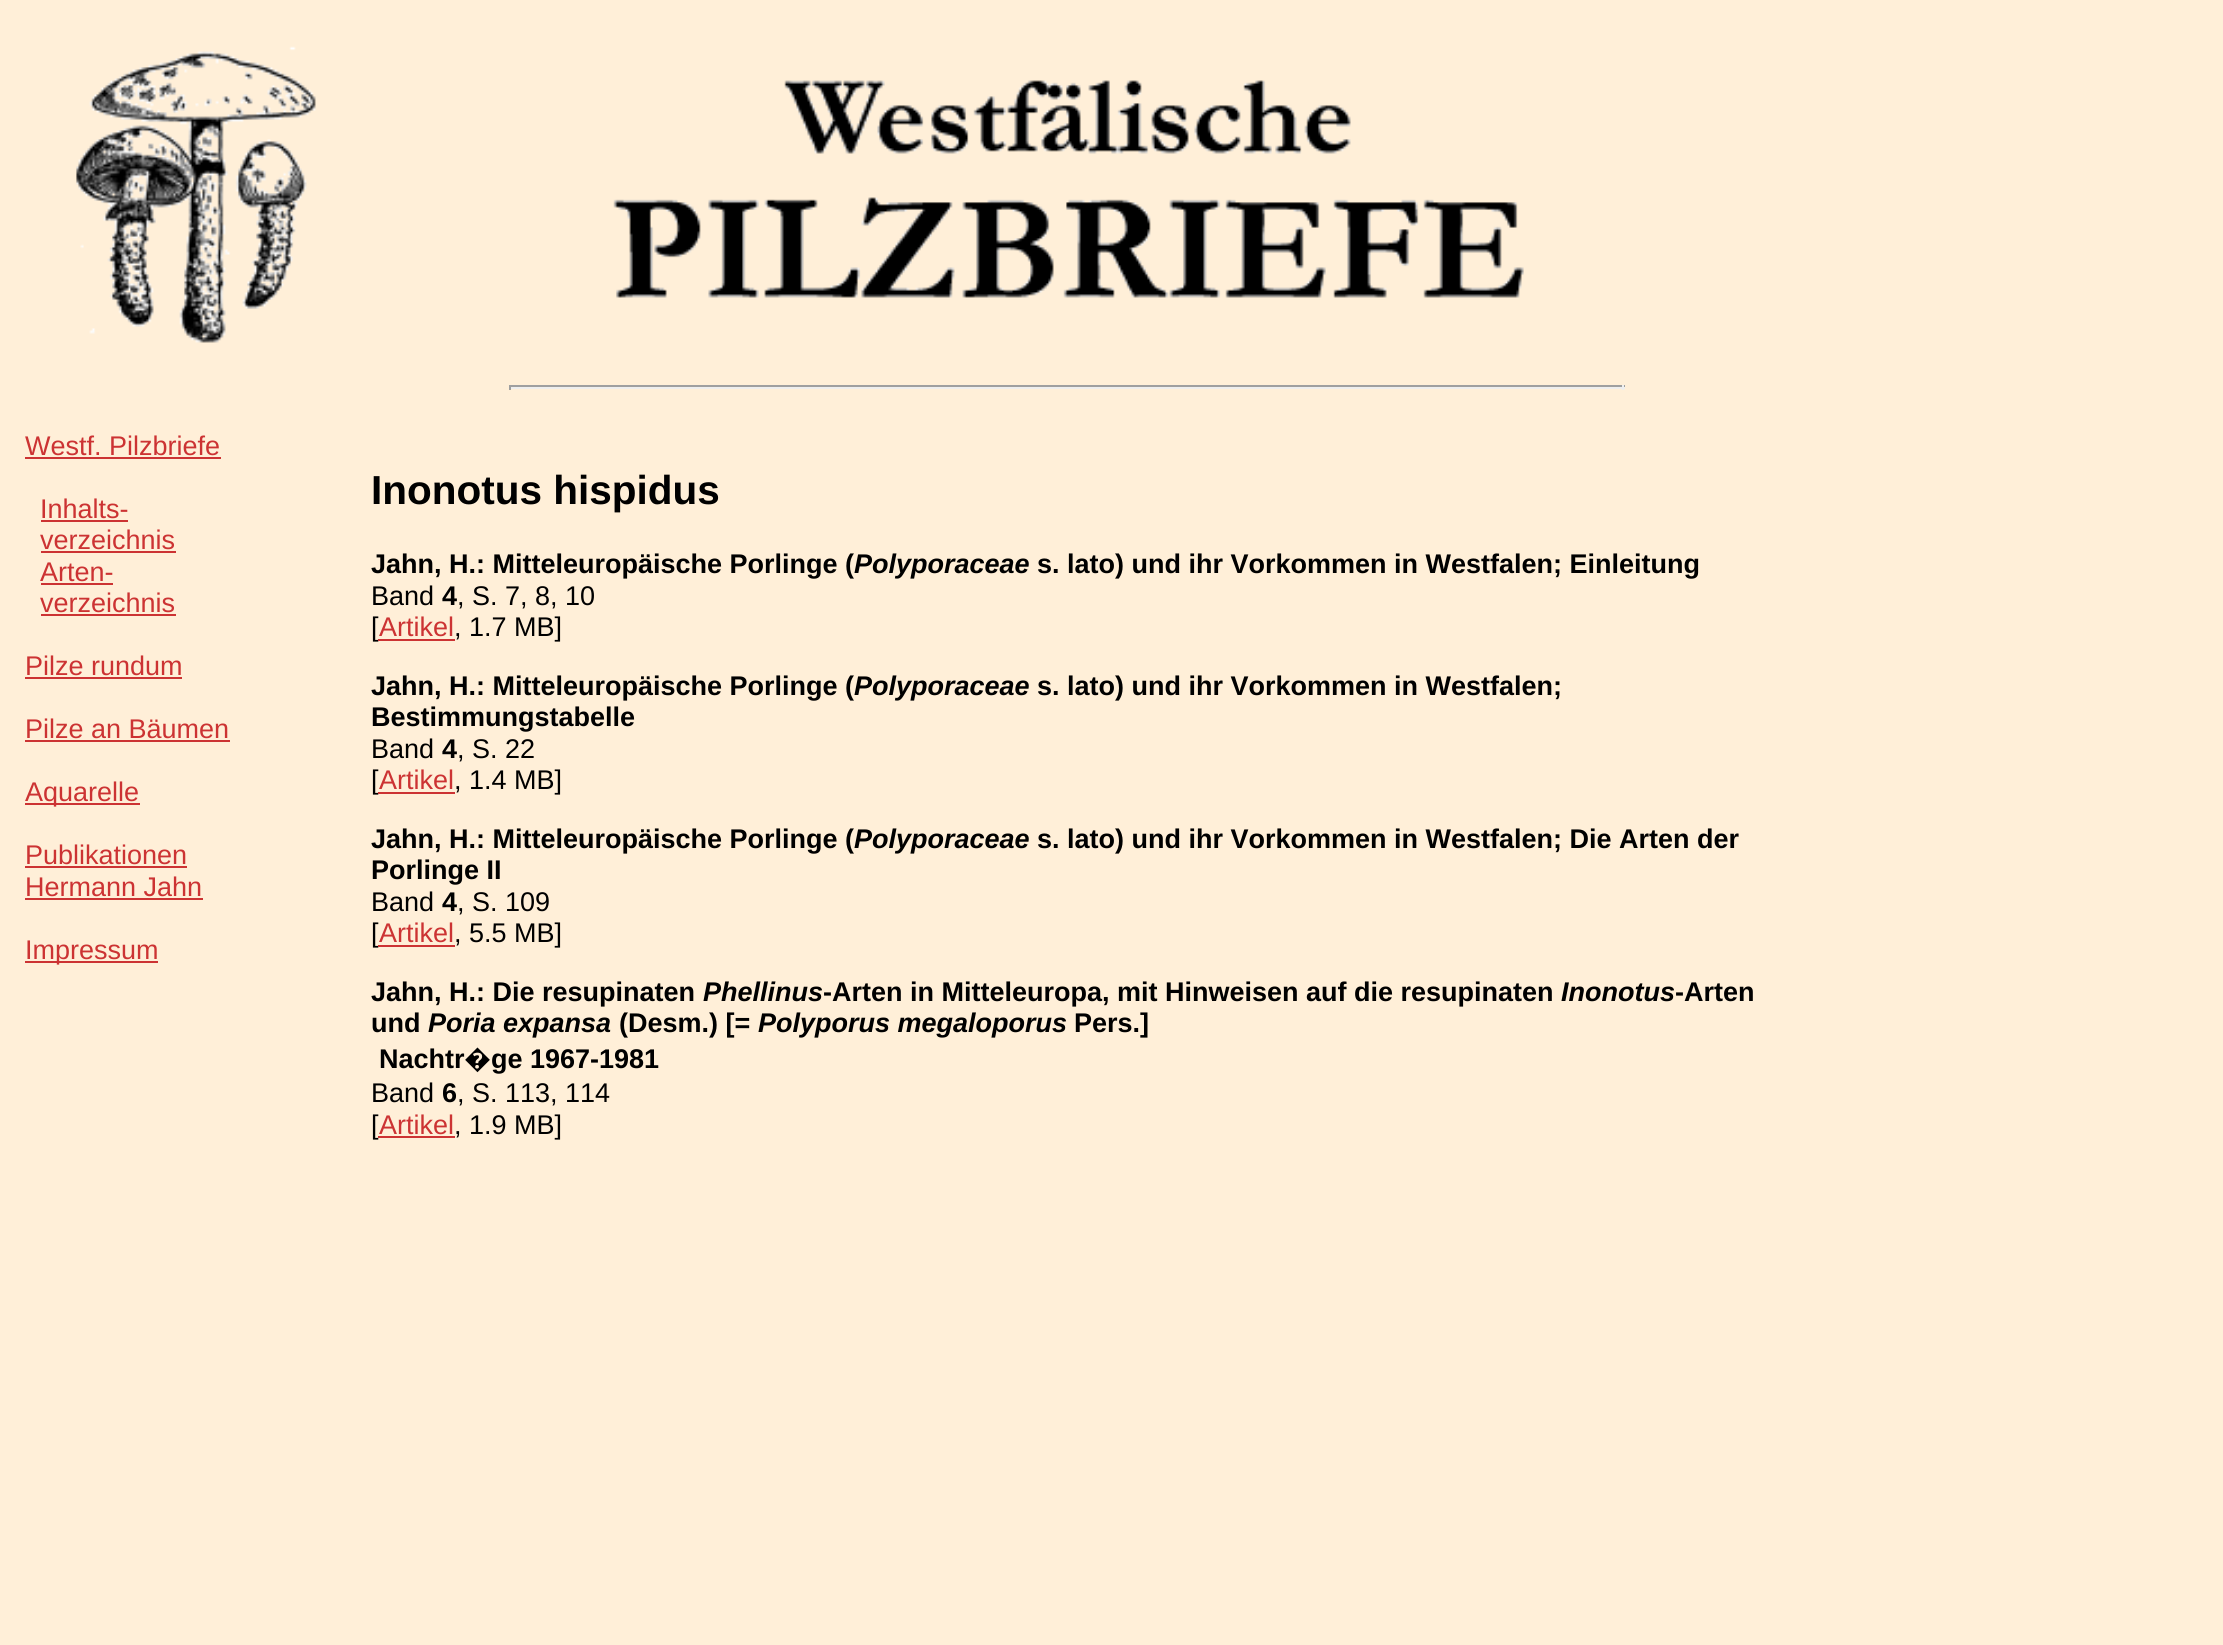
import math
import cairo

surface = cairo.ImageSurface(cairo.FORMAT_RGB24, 2223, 1645)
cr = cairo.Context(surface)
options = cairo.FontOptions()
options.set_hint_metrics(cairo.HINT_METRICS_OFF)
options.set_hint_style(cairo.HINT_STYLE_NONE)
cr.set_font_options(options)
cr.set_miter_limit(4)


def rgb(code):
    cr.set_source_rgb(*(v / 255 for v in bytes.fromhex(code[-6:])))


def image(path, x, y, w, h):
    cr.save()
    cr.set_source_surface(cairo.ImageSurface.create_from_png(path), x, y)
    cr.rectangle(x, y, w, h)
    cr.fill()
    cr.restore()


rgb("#ffefd8")
cr.paint()
image("img/1.png", 76, 46, 240, 297)
image("img/2.png", 613, 80, 911, 218)
for x, y, w, h, color in [
    (25, 457, 196, 2, "#cc3333"),
    (41, 520, 87, 2, "#cc3333"),
    (41, 551, 135, 2, "#cc3333"),
    (41, 583, 72, 2, "#cc3333"),
    (41, 614, 135, 2, "#cc3333"),
    (25, 677, 157, 2, "#cc3333"),
    (25, 740, 205, 2, "#cc3333"),
    (25, 803, 115, 2, "#cc3333"),
    (25, 866, 162, 2, "#cc3333"),
    (25, 898, 178, 2, "#cc3333"),
    (25, 961, 133, 2, "#cc3333"),
    (509, 385, 1116, 2, "#9f9f9f"),
    (1622, 385, 2, 5, "#eeeeee"),
    (509, 387, 1116, 2, "#eeeeee"),
    (509, 385, 2, 5, "#9f9f9f"),
]:
    rgb(color)
    cr.rectangle(x, y, w, h)
    cr.fill()
cr.select_font_face("Liberation Sans")
cr.set_font_size(27)
rgb("#cc3333")
for x, y, s in [
    (25, 455, "Westf. Pilzbriefe"),
    (40, 518, "Inhalts-"),
    (40, 549, "verzeichnis"),
    (40, 581, "Arten-"),
    (40, 612, "verzeichnis"),
    (25, 675, "Pilze rundum"),
    (25, 738, "Pilze an Bäumen"),
    (25, 801, "Aquarelle"),
    (25, 864, "Publikationen"),
    (25, 896, "Hermann Jahn"),
    (25, 959, "Impressum"),
]:
    cr.move_to(x, y)
    cr.show_text(s)
cr.select_font_face("Liberation Sans", cairo.FONT_SLANT_NORMAL, cairo.FONT_WEIGHT_BOLD)
cr.set_font_size(40.5)
rgb("#000000")
cr.move_to(371, 504)
cr.show_text("Inonotus hispidus")
cr.set_font_size(27)
cr.move_to(371, 573)
cr.show_text("Jahn, H.: Mitteleuropäische Porlinge (")
cr.select_font_face("Liberation Sans", cairo.FONT_SLANT_ITALIC, cairo.FONT_WEIGHT_BOLD)
cr.move_to(854, 573)
cr.show_text("Polyporaceae")
cr.select_font_face("Liberation Sans", cairo.FONT_SLANT_NORMAL, cairo.FONT_WEIGHT_BOLD)
cr.move_to(1037, 573)
cr.show_text("s. lato) und ihr Vorkommen in Westfalen; Einleitung")
cr.select_font_face("Liberation Sans")
cr.move_to(371, 605)
cr.show_text("Band")
cr.select_font_face("Liberation Sans", cairo.FONT_SLANT_NORMAL, cairo.FONT_WEIGHT_BOLD)
cr.move_to(442, 605)
cr.show_text("4")
cr.select_font_face("Liberation Sans")
cr.move_to(457, 605)
cr.show_text(", S. 7, 8, 10")
cr.move_to(371, 636)
cr.show_text("[")
rgb("#cc3333")
cr.move_to(379, 636)
cr.show_text("Artikel")
cr.rectangle(378, 639, 77, 2)
cr.fill()
rgb("#000000")
cr.move_to(454, 636)
cr.show_text(", 1.7 MB]")
cr.select_font_face("Liberation Sans", cairo.FONT_SLANT_NORMAL, cairo.FONT_WEIGHT_BOLD)
cr.move_to(371, 695)
cr.show_text("Jahn, H.: Mitteleuropäische Porlinge (")
cr.select_font_face("Liberation Sans", cairo.FONT_SLANT_ITALIC, cairo.FONT_WEIGHT_BOLD)
cr.move_to(854, 695)
cr.show_text("Polyporaceae")
cr.select_font_face("Liberation Sans", cairo.FONT_SLANT_NORMAL, cairo.FONT_WEIGHT_BOLD)
cr.move_to(1037, 695)
cr.show_text("s. lato) und ihr Vorkommen in Westfalen;")
cr.move_to(371, 726)
cr.show_text("Bestimmungstabelle")
cr.select_font_face("Liberation Sans")
cr.move_to(371, 758)
cr.show_text("Band")
cr.select_font_face("Liberation Sans", cairo.FONT_SLANT_NORMAL, cairo.FONT_WEIGHT_BOLD)
cr.move_to(442, 758)
cr.show_text("4")
cr.select_font_face("Liberation Sans")
cr.move_to(457, 758)
cr.show_text(", S. 22")
cr.move_to(371, 789)
cr.show_text("[")
rgb("#cc3333")
cr.move_to(379, 789)
cr.show_text("Artikel")
cr.rectangle(378, 792, 77, 2)
cr.fill()
rgb("#000000")
cr.move_to(454, 789)
cr.show_text(", 1.4 MB]")
cr.select_font_face("Liberation Sans", cairo.FONT_SLANT_NORMAL, cairo.FONT_WEIGHT_BOLD)
cr.move_to(371, 848)
cr.show_text("Jahn, H.: Mitteleuropäische Porlinge (")
cr.select_font_face("Liberation Sans", cairo.FONT_SLANT_ITALIC, cairo.FONT_WEIGHT_BOLD)
cr.move_to(854, 848)
cr.show_text("Polyporaceae")
cr.select_font_face("Liberation Sans", cairo.FONT_SLANT_NORMAL, cairo.FONT_WEIGHT_BOLD)
cr.move_to(1037, 848)
cr.show_text("s. lato) und ihr Vorkommen in Westfalen; Die Arten der")
cr.move_to(371, 879)
cr.show_text("Porlinge II")
cr.select_font_face("Liberation Sans")
cr.move_to(371, 911)
cr.show_text("Band")
cr.select_font_face("Liberation Sans", cairo.FONT_SLANT_NORMAL, cairo.FONT_WEIGHT_BOLD)
cr.move_to(442, 911)
cr.show_text("4")
cr.select_font_face("Liberation Sans")
cr.move_to(457, 911)
cr.show_text(", S. 109")
cr.move_to(371, 942)
cr.show_text("[")
rgb("#cc3333")
cr.move_to(379, 942)
cr.show_text("Artikel")
cr.rectangle(378, 945, 77, 2)
cr.fill()
rgb("#000000")
cr.move_to(454, 942)
cr.show_text(", 5.5 MB]")
cr.select_font_face("Liberation Sans", cairo.FONT_SLANT_NORMAL, cairo.FONT_WEIGHT_BOLD)
cr.move_to(371, 1001)
cr.show_text("Jahn, H.: Die resupinaten")
cr.select_font_face("Liberation Sans", cairo.FONT_SLANT_ITALIC, cairo.FONT_WEIGHT_BOLD)
cr.move_to(703, 1001)
cr.show_text("Phellinus")
cr.select_font_face("Liberation Sans", cairo.FONT_SLANT_NORMAL, cairo.FONT_WEIGHT_BOLD)
cr.move_to(823, 1001)
cr.show_text("-Arten in Mitteleuropa, mit Hinweisen auf die resupinaten")
cr.select_font_face("Liberation Sans", cairo.FONT_SLANT_ITALIC, cairo.FONT_WEIGHT_BOLD)
cr.move_to(1561, 1001)
cr.show_text("Inonotus")
cr.select_font_face("Liberation Sans", cairo.FONT_SLANT_NORMAL, cairo.FONT_WEIGHT_BOLD)
cr.move_to(1675, 1001)
cr.show_text("-Arten")
cr.move_to(371, 1032)
cr.show_text("und")
cr.select_font_face("Liberation Sans", cairo.FONT_SLANT_ITALIC, cairo.FONT_WEIGHT_BOLD)
cr.move_to(428, 1032)
cr.show_text("Poria expansa")
cr.select_font_face("Liberation Sans", cairo.FONT_SLANT_NORMAL, cairo.FONT_WEIGHT_BOLD)
cr.move_to(619, 1032)
cr.show_text("(Desm.) [=")
cr.select_font_face("Liberation Sans", cairo.FONT_SLANT_ITALIC, cairo.FONT_WEIGHT_BOLD)
cr.move_to(758, 1032)
cr.show_text("Polyporus megaloporus")
cr.select_font_face("Liberation Sans", cairo.FONT_SLANT_NORMAL, cairo.FONT_WEIGHT_BOLD)
cr.move_to(1074, 1032)
cr.show_text("Pers.]")
cr.move_to(379, 1068)
cr.show_text("Nachtr")
cr.select_font_face("Noto Sans", cairo.FONT_SLANT_NORMAL, cairo.FONT_WEIGHT_BOLD)
cr.move_to(464, 1068)
cr.show_text("�")
cr.select_font_face("Liberation Sans", cairo.FONT_SLANT_NORMAL, cairo.FONT_WEIGHT_BOLD)
cr.move_to(491, 1068)
cr.show_text("ge 1967-1981")
cr.select_font_face("Liberation Sans")
cr.move_to(371, 1102)
cr.show_text("Band")
cr.select_font_face("Liberation Sans", cairo.FONT_SLANT_NORMAL, cairo.FONT_WEIGHT_BOLD)
cr.move_to(442, 1102)
cr.show_text("6")
cr.select_font_face("Liberation Sans")
cr.move_to(457, 1102)
cr.show_text(", S. 113, 114")
cr.move_to(371, 1134)
cr.show_text("[")
rgb("#cc3333")
cr.move_to(379, 1134)
cr.show_text("Artikel")
cr.rectangle(378, 1136, 77, 2)
cr.fill()
rgb("#000000")
cr.move_to(454, 1134)
cr.show_text(", 1.9 MB]")
surface.write_to_png("page.png")
